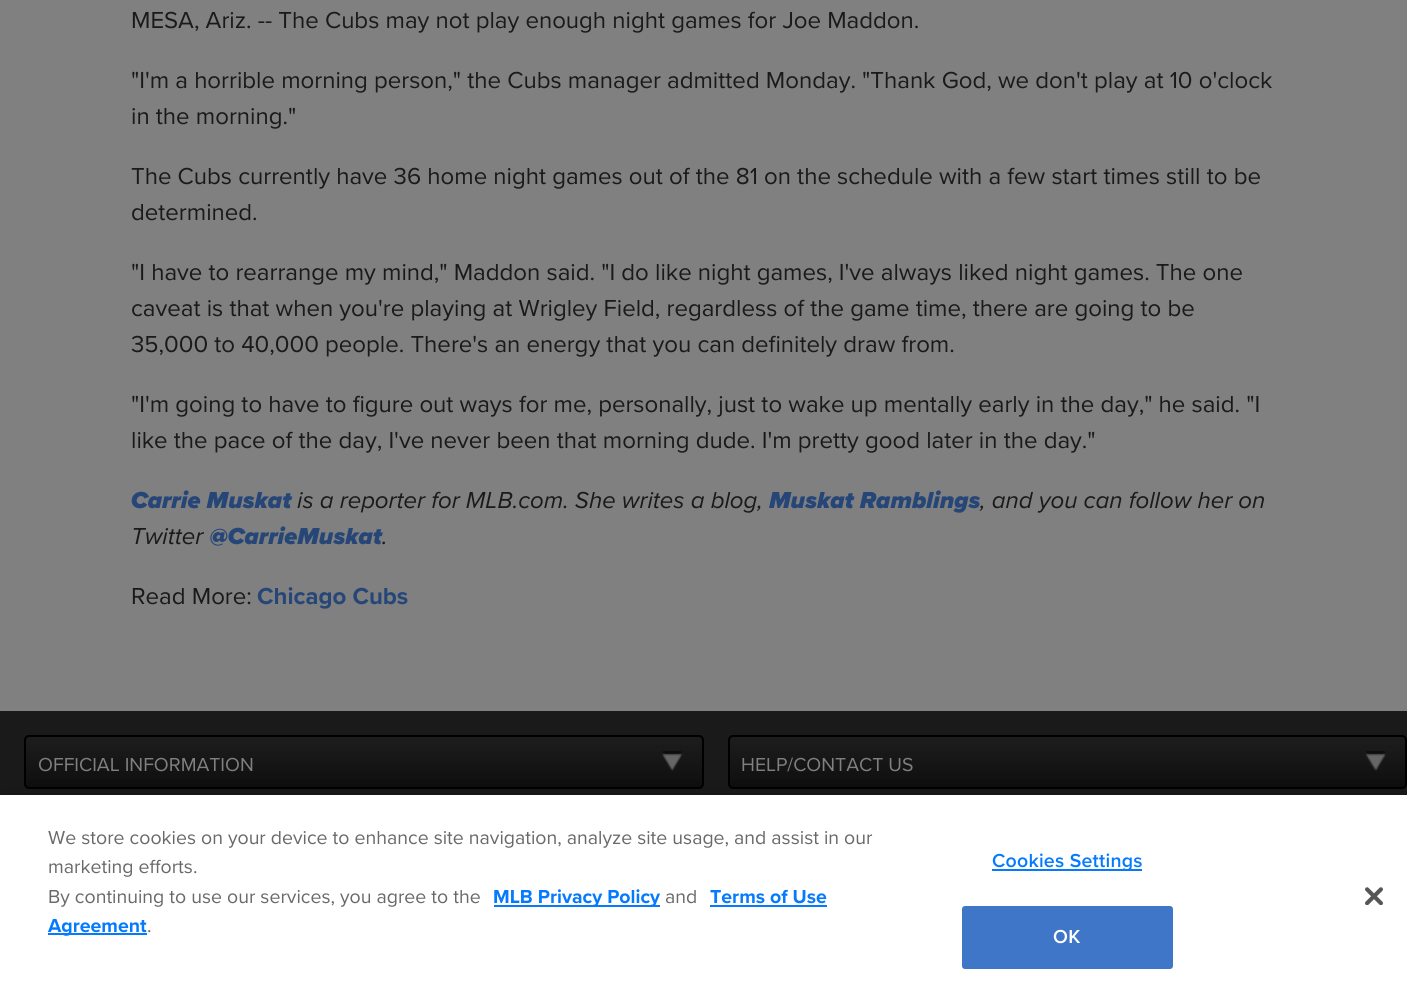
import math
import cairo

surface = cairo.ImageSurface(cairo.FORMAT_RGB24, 1407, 998)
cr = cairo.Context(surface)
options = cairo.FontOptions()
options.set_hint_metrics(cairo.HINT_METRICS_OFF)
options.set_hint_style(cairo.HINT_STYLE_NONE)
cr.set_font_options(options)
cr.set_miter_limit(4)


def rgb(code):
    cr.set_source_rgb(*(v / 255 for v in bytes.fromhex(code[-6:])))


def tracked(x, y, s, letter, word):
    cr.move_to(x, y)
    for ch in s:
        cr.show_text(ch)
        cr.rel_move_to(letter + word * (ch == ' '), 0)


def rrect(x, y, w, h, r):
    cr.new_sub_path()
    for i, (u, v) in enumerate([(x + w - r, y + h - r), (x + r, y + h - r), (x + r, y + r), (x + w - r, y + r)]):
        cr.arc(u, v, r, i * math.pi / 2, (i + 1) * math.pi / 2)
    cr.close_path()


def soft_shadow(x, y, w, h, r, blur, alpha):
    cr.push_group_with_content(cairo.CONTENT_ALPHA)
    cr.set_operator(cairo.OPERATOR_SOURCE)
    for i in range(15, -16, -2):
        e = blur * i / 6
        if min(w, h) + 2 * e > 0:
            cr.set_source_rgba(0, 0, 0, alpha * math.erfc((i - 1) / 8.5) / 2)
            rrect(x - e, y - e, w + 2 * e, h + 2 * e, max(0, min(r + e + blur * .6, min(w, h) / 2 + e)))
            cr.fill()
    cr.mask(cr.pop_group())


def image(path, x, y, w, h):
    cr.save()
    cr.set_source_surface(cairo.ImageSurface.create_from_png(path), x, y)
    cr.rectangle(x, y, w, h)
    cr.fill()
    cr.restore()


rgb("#808080")
cr.paint()
rgb("#1a1a1a")
cr.rectangle(0, 711, 1407, 84)
cr.fill()
image("img/1.png", 25, 736, 677, 51)
rrect(25, 736, 678, 52, 4)
rgb("#000000")
cr.stroke()
image("img/2.png", 729, 736, 677, 51)
rrect(729, 736, 677, 52, 4)
cr.stroke()
rgb("#000000")
soft_shadow(0, 795, 1407, 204, 0, 13.5, 0.2)
for x, y, w, h, color in [
    (0, 795, 1407, 203, "#ffffff"),
    (494, 905, 166, 2, "#057aff"),
    (710, 905, 117, 2, "#057aff"),
    (48, 933, 99, 2, "#057aff"),
    (992, 869, 150, 2, "#057aff"),
]:
    rgb(color)
    cr.rectangle(x, y, w, h)
    cr.fill()
rgb("#4076c7")
rrect(963, 907, 209, 61, 2)
cr.fill_preserve()
cr.stroke()
image("img/3.png", 1365, 887, 18, 18)
cr.select_font_face("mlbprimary")
cr.set_font_size(24)
rgb("#1a1a1a")
for x, y, s in [
    (131, 28, "MESA, Ariz. -- The Cubs may not play enough night games for Joe Maddon."),
    (131, 88, "\"I'm a horrible morning person,\" the Cubs manager admitted Monday. \"Thank God, we don't play at 10 o'clock"),
    (131, 124, "in the morning.\""),
    (131, 184, "The Cubs currently have 36 home night games out of the 81 on the schedule with a few start times still to be"),
    (131, 220, "determined."),
    (131, 280, "\"I have to rearrange my mind,\" Maddon said. \"I do like night games, I've always liked night games. The one"),
    (131, 316, "caveat is that when you're playing at Wrigley Field, regardless of the game time, there are going to be"),
    (131, 352, "35,000 to 40,000 people. There's an energy that you can definitely draw from."),
    (131, 412, "\"I'm going to have to figure out ways for me, personally, just to wake up mentally early in the day,\" he said. \"I"),
    (131, 448, "like the pace of the day, I've never been that morning dude. I'm pretty good later in the day.\""),
]:
    cr.move_to(x, y)
    cr.show_text(s)
cr.select_font_face("Proxima Nova Black", cairo.FONT_SLANT_ITALIC)
rgb("#264677")
cr.move_to(131, 508)
cr.show_text("Carrie Muskat")
cr.select_font_face("mlbprimary", cairo.FONT_SLANT_ITALIC)
rgb("#1a1a1a")
cr.move_to(297, 508)
cr.show_text("is a reporter for MLB.com. She writes a blog,")
cr.select_font_face("Proxima Nova Black", cairo.FONT_SLANT_ITALIC)
rgb("#264677")
cr.move_to(769, 508)
cr.show_text("Muskat Ramblings")
cr.select_font_face("mlbprimary", cairo.FONT_SLANT_ITALIC)
rgb("#1a1a1a")
cr.move_to(980, 508)
cr.show_text(", and you can follow her on")
cr.move_to(131, 544)
cr.show_text("Twitter")
cr.select_font_face("Proxima Nova Black", cairo.FONT_SLANT_ITALIC)
rgb("#264677")
cr.move_to(209, 544)
cr.show_text("@CarrieMuskat")
cr.select_font_face("mlbprimary", cairo.FONT_SLANT_ITALIC)
rgb("#1a1a1a")
cr.move_to(382, 544)
cr.show_text(".")
cr.select_font_face("mlbprimary")
cr.move_to(131, 604)
cr.show_text("Read More:")
cr.select_font_face("mlbprimary", cairo.FONT_SLANT_NORMAL, cairo.FONT_WEIGHT_BOLD)
rgb("#264677")
cr.move_to(257, 604)
cr.show_text("Chicago Cubs")
cr.select_font_face("Proxima Nova")
cr.set_font_size(19.5)
rgb("#808080")
cr.move_to(38, 771)
cr.show_text("OFFICIAL INFORMATION")
cr.move_to(741, 771)
cr.show_text("HELP/CONTACT US")
cr.select_font_face("mlbprimary")
rgb("#696969")
for x, y, s in [
    (48, 844, "We store cookies on your device to enhance site navigation, analyze site usage, and assist in our"),
    (48, 873, "marketing efforts."),
    (48, 903, "By continuing to use our services, you agree to the"),
]:
    cr.move_to(x, y)
    cr.show_text(s)
cr.select_font_face("mlbprimary", cairo.FONT_SLANT_NORMAL, cairo.FONT_WEIGHT_BOLD)
rgb("#057aff")
cr.move_to(493, 903)
cr.show_text("MLB Privacy Policy")
cr.select_font_face("mlbprimary")
rgb("#696969")
cr.move_to(665, 903)
cr.show_text("and")
cr.select_font_face("mlbprimary", cairo.FONT_SLANT_NORMAL, cairo.FONT_WEIGHT_BOLD)
rgb("#057aff")
cr.move_to(710, 903)
cr.show_text("Terms of Use")
cr.move_to(48, 932)
cr.show_text("Agreement")
cr.select_font_face("mlbprimary")
rgb("#696969")
cr.move_to(147, 932)
cr.show_text(".")
cr.select_font_face("Proxima Nova SemiBold")
rgb("#057aff")
tracked(992, 867, "Cookies Settings", 0.25, 0)
rgb("#ffffff")
tracked(1053, 943, "OK", 0.25, 0)
surface.write_to_png("page.png")
